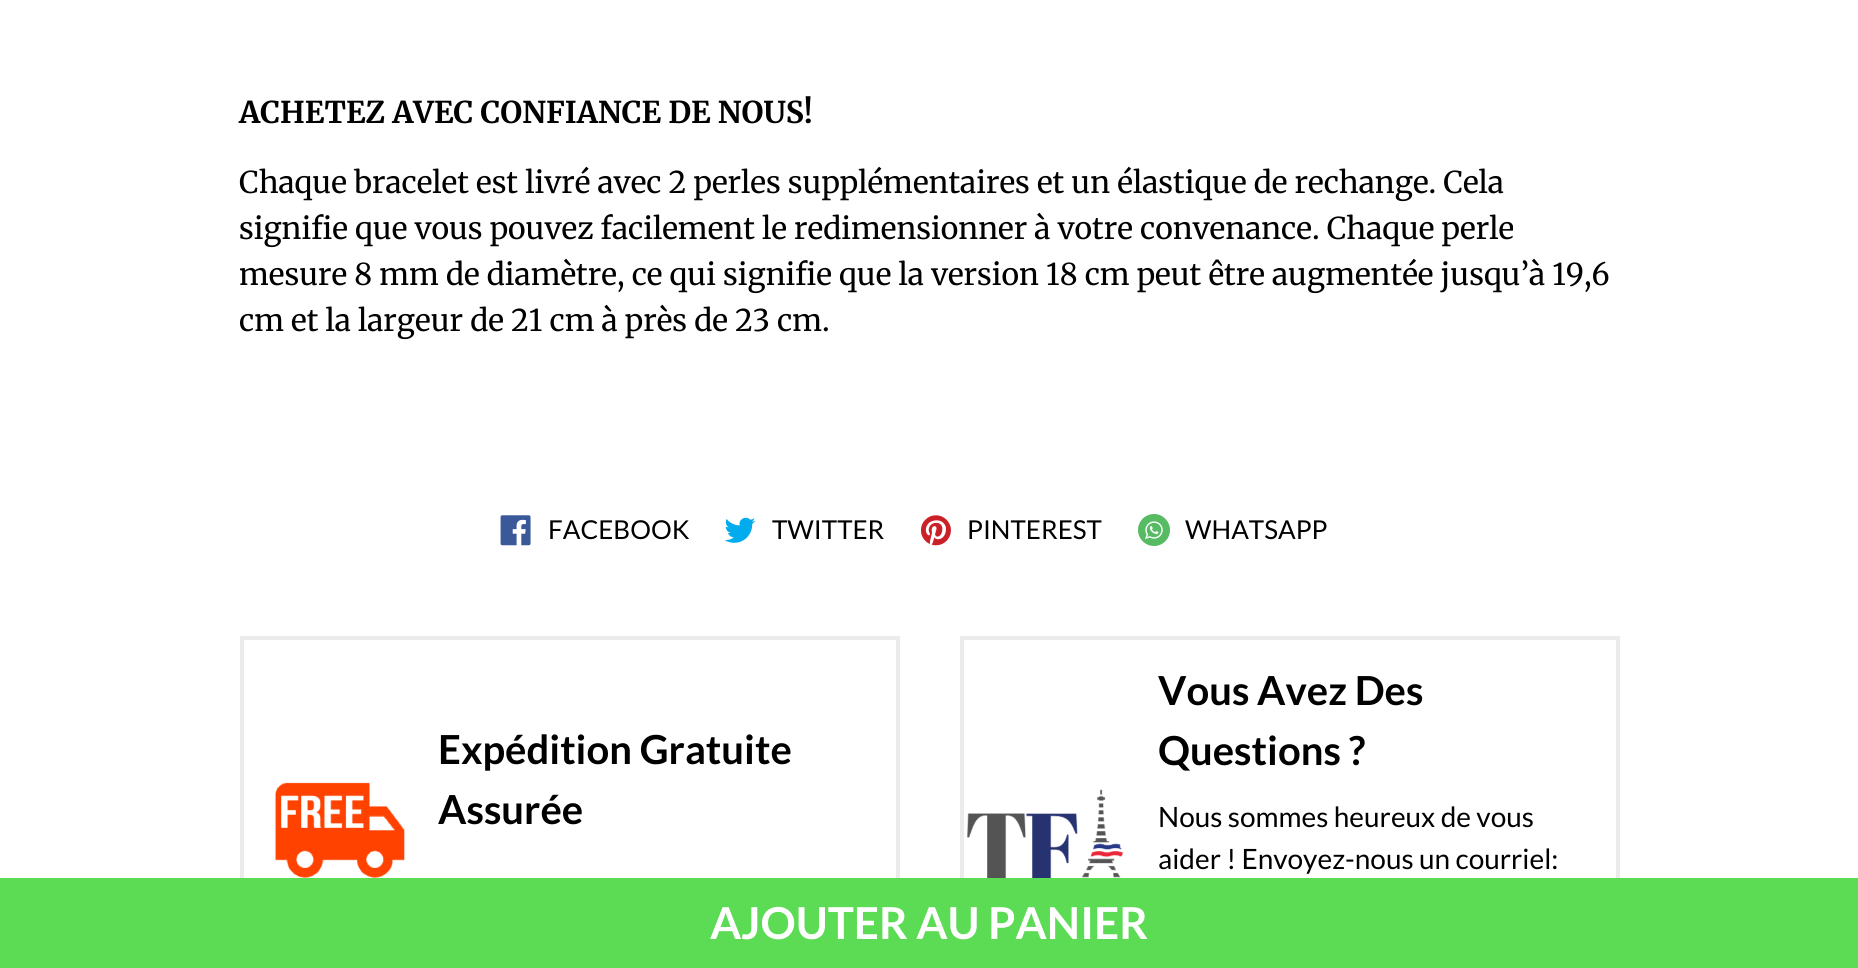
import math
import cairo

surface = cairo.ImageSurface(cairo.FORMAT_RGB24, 1858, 968)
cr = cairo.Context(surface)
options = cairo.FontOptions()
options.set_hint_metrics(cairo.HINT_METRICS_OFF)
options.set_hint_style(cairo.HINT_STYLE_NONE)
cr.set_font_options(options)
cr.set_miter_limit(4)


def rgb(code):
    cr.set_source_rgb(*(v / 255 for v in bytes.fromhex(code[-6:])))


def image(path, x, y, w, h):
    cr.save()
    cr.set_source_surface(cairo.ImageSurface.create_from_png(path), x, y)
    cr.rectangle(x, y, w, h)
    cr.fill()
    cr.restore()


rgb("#ffffff")
cr.paint()
image("img/1.png", 500, 515, 31, 31)
image("img/2.png", 724, 517, 32, 26)
image("img/3.png", 920, 515, 31, 31)
image("img/4.png", 1138, 514, 32, 32)
cr.rectangle(242, 638, 656, 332)
rgb("#ebebeb")
cr.set_line_width(4)
cr.stroke()
image("img/5.png", 275, 782, 130, 96)
cr.rectangle(962, 638, 656, 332)
cr.stroke()
image("img/6.png", 967, 789, 157, 89)
rgb("#5bdc54")
cr.rectangle(0, 878, 1858, 90)
cr.fill()
cr.select_font_face("Merriweather", cairo.FONT_SLANT_NORMAL, cairo.FONT_WEIGHT_BOLD)
cr.set_font_size(30)
rgb("#000000")
cr.move_to(239, 123)
cr.show_text("ACHETEZ AVEC CONFIANCE DE NOUS!")
cr.select_font_face("Merriweather")
for x, y, s in [
    (239, 193, "Chaque bracelet est livré avec 2 perles supplémentaires et un élastique de rechange. Cela"),
    (239, 239, "signifie que vous pouvez facilement le redimensionner à votre convenance. Chaque perle"),
    (239, 285, "mesure 8 mm de diamètre, ce qui signifie que la version 18 cm peut être augmentée jusqu’à 19,6"),
    (239, 331, "cm et la largeur de 21 cm à près de 23 cm."),
]:
    cr.move_to(x, y)
    cr.show_text(s)
cr.select_font_face("Lato")
cr.set_font_size(26)
for x, y, s in [
    (548, 539, "FACEBOOK"),
    (772, 539, "TWITTER"),
    (967, 539, "PINTEREST"),
    (1185, 539, "WHATSAPP"),
]:
    cr.move_to(x, y)
    cr.show_text(s)
cr.select_font_face("Lato", cairo.FONT_SLANT_NORMAL, cairo.FONT_WEIGHT_BOLD)
cr.set_font_size(40)
for x, y, s in [
    (438, 764, "Expédition Gratuite"),
    (438, 824, "Assurée"),
    (1158, 705, "Vous Avez Des"),
    (1158, 765, "Questions ?"),
]:
    cr.move_to(x, y)
    cr.show_text(s)
cr.select_font_face("Lato")
cr.set_font_size(28)
cr.move_to(1158, 827)
cr.show_text("Nous sommes heureux de vous")
cr.move_to(1158, 869)
cr.show_text("aider ! Envoyez-nous un courriel:")
cr.select_font_face("Lato", cairo.FONT_SLANT_NORMAL, cairo.FONT_WEIGHT_BOLD)
cr.set_font_size(44)
rgb("#ffffff")
cr.move_to(710, 939)
cr.show_text("AJOUTER AU PANIER")
surface.write_to_png("page.png")
